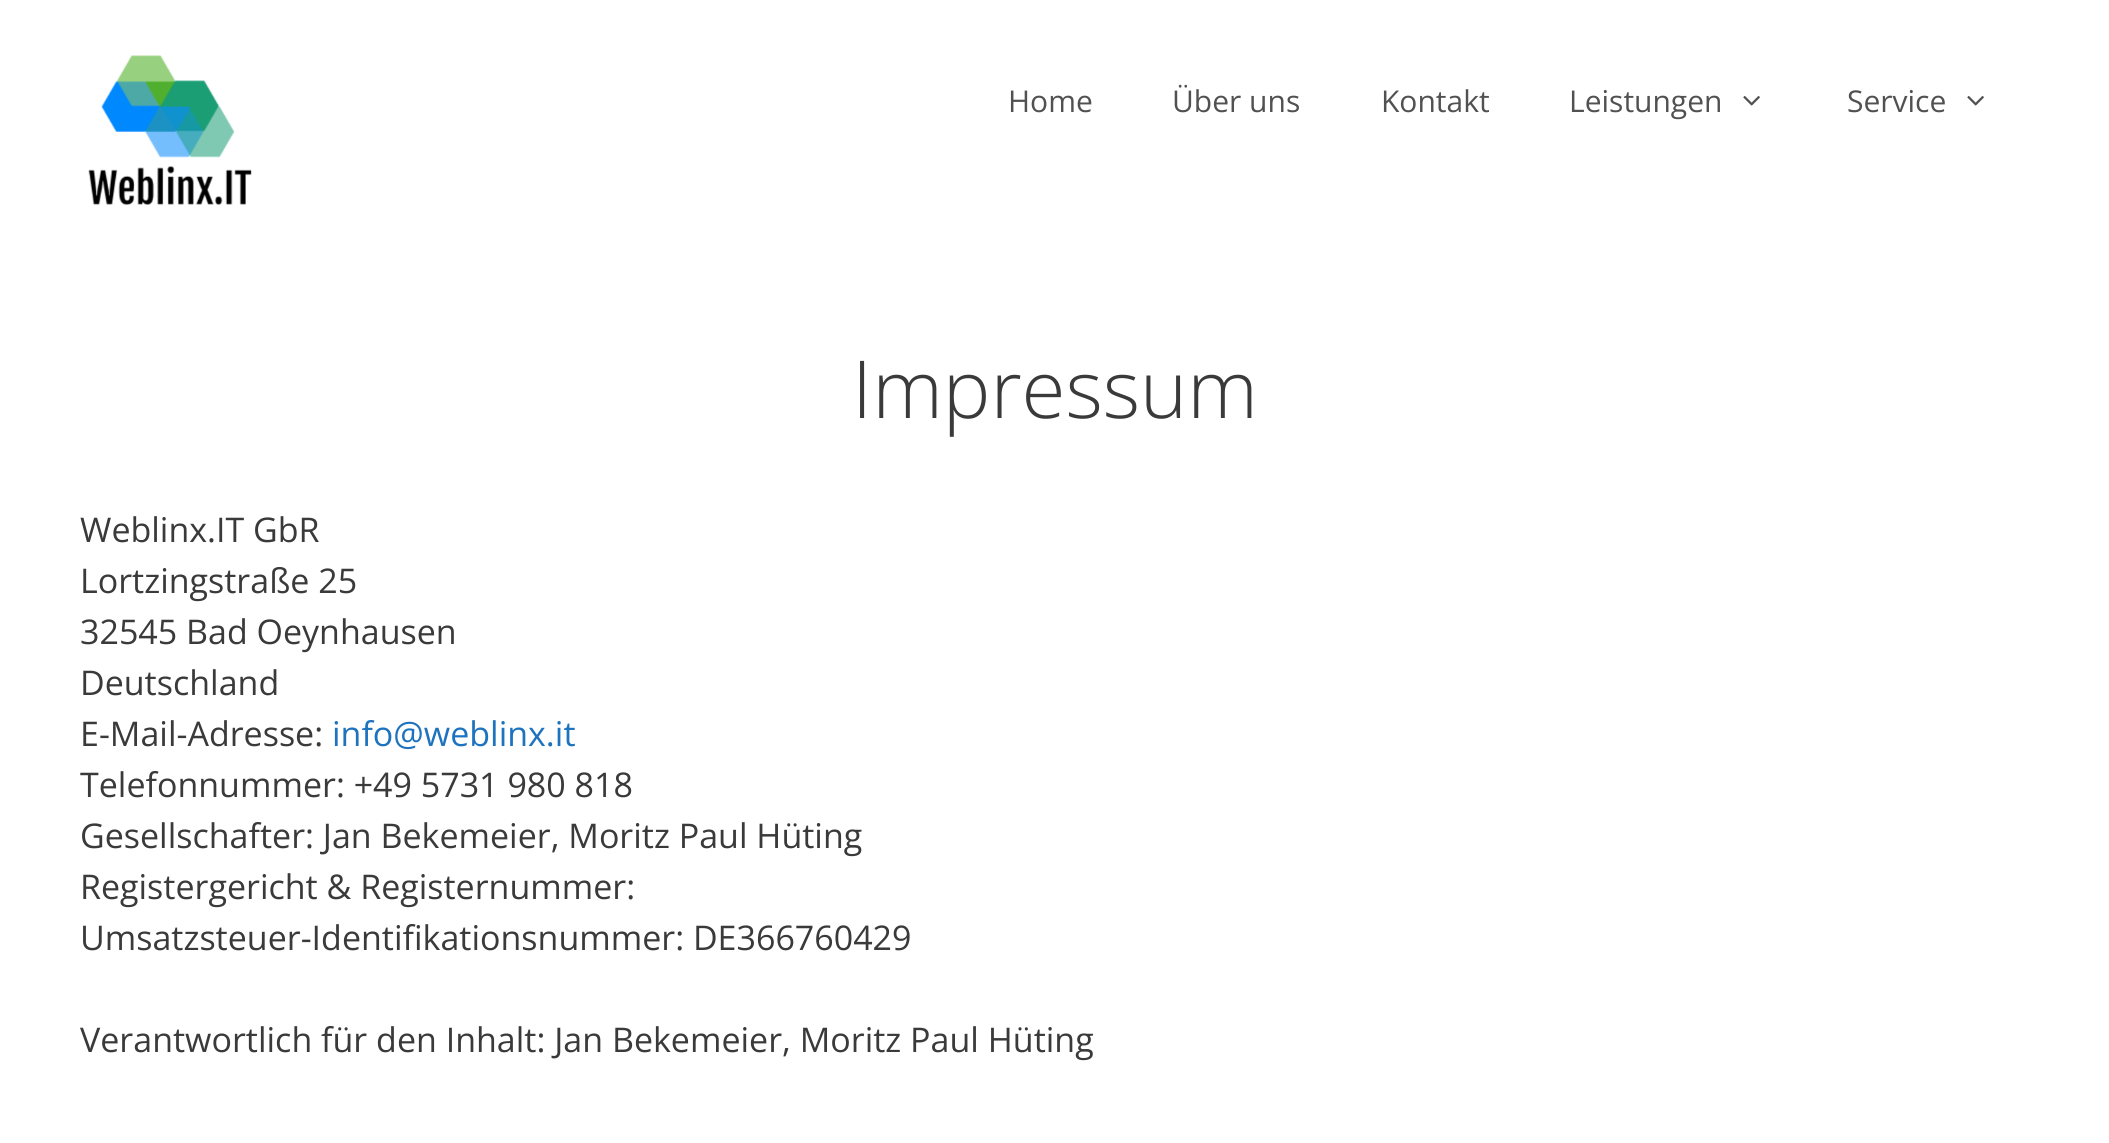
import math
import cairo

surface = cairo.ImageSurface(cairo.FORMAT_RGB24, 2109, 1143)
cr = cairo.Context(surface)
options = cairo.FontOptions()
options.set_hint_metrics(cairo.HINT_METRICS_OFF)
options.set_hint_style(cairo.HINT_STYLE_NONE)
cr.set_font_options(options)
cr.set_miter_limit(4)


def rgb(code):
    cr.set_source_rgb(*(v / 255 for v in bytes.fromhex(code[-6:])))


def image(path, x, y, w, h):
    cr.save()
    cr.set_source_surface(cairo.ImageSurface.create_from_png(path), x, y)
    cr.rectangle(x, y, w, h)
    cr.fill()
    cr.restore()


rgb("#ffffff")
cr.paint()
image("img/1.png", 88, 55, 164, 150)
image("img/2.png", 1743, 95, 17, 11)
image("img/2.png", 1967, 95, 17, 11)
cr.select_font_face("Open Sans")
cr.set_font_size(30)
rgb("#515151")
for x, y, s in [
    (1008, 112, "Home"),
    (1172, 112, "Über uns"),
    (1381, 112, "Kontakt"),
    (1569, 112, "Leistungen"),
    (1847, 112, "Service"),
]:
    cr.move_to(x, y)
    cr.show_text(s)
cr.select_font_face("Open Sans Light")
cr.set_font_size(80)
rgb("#3a3a3a")
cr.move_to(852, 418)
cr.show_text("Impressum")
cr.select_font_face("Open Sans")
cr.set_font_size(34)
for x, y, s in [
    (80, 542, "Weblinx.IT GbR"),
    (80, 593, "Lortzingstraße 25"),
    (80, 644, "32545 Bad Oeynhausen"),
    (80, 695, "Deutschland"),
    (80, 746, "E-Mail-Adresse:"),
]:
    cr.move_to(x, y)
    cr.show_text(s)
rgb("#1e73be")
cr.move_to(332, 746)
cr.show_text("info@weblinx.it")
rgb("#3a3a3a")
for x, y, s in [
    (80, 797, "Telefonnummer: +49 5731 980 818"),
    (80, 848, "Gesellschafter: Jan Bekemeier, Moritz Paul Hüting"),
    (80, 899, "Registergericht & Registernummer:"),
    (80, 950, "Umsatzsteuer-Identifikationsnummer: DE366760429"),
    (80, 1052, "Verantwortlich für den Inhalt: Jan Bekemeier, Moritz Paul Hüting"),
]:
    cr.move_to(x, y)
    cr.show_text(s)
surface.write_to_png("page.png")
